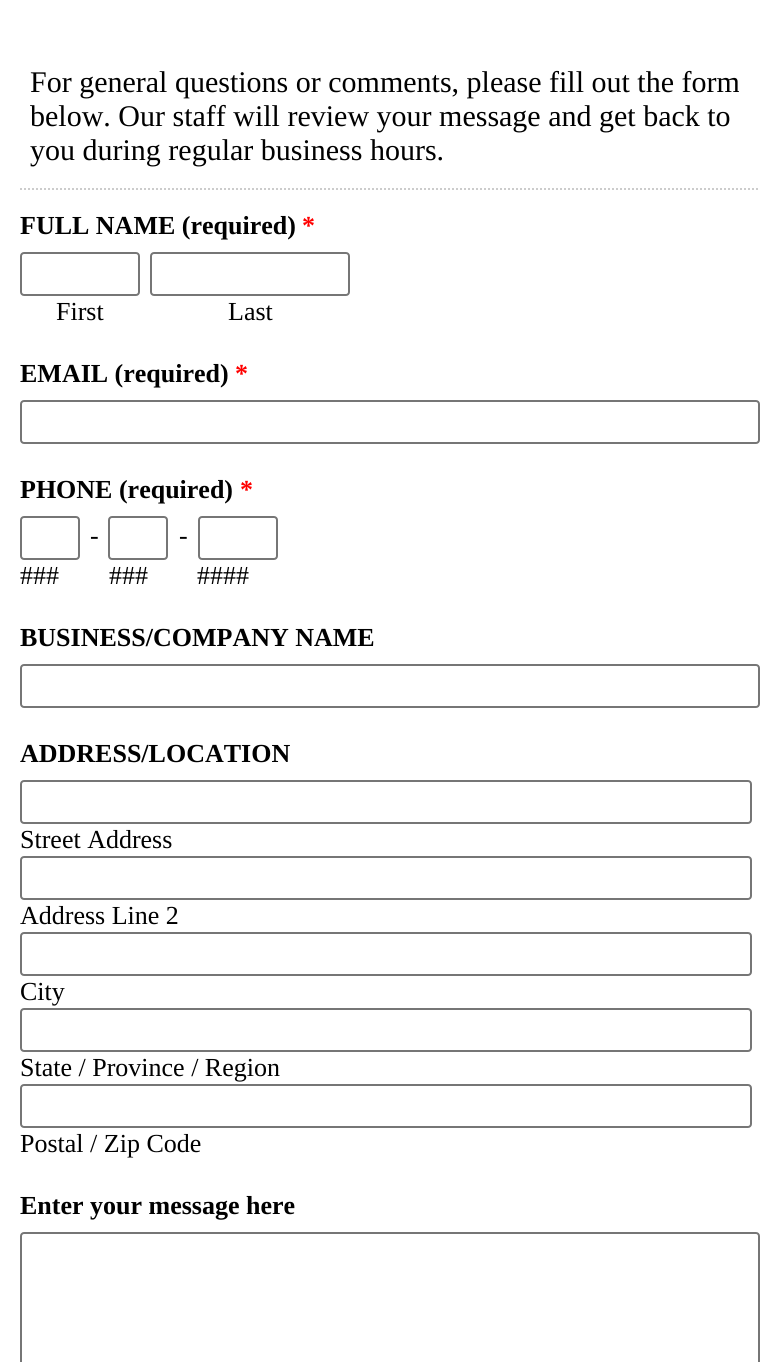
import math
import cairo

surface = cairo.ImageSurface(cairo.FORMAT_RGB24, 779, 1362)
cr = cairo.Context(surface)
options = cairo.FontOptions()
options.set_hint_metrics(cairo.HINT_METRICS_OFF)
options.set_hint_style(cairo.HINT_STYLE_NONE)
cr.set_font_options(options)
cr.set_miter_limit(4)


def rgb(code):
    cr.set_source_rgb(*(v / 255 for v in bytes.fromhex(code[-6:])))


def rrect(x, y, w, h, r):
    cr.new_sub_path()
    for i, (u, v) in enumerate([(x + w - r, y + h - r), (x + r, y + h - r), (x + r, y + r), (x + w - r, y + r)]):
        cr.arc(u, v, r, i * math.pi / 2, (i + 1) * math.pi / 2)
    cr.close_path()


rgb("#ffffff")
cr.paint()
cr.new_path()
cr.move_to(20, 189)
cr.line_to(760, 189)
rgb("#cccccc")
cr.set_dash([2, 2])
cr.stroke()
rrect(21, 253, 118, 42, 3)
rgb("#767676")
cr.set_dash([])
cr.stroke()
rrect(151, 253, 198, 42, 3)
cr.stroke()
rrect(21, 401, 738, 42, 3)
cr.stroke()
rrect(21, 517, 58, 42, 3)
cr.stroke()
rrect(109, 517, 58, 42, 3)
cr.stroke()
rrect(199, 517, 78, 42, 3)
cr.stroke()
rrect(21, 665, 738, 42, 3)
cr.stroke()
rrect(21, 781, 730, 42, 3)
cr.stroke()
rrect(21, 857, 730, 42, 3)
cr.stroke()
rrect(21, 933, 730, 42, 3)
cr.stroke()
rrect(21, 1009, 730, 42, 3)
cr.stroke()
rrect(21, 1085, 730, 42, 3)
cr.stroke()
rrect(21, 1233, 738, 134, 3)
cr.stroke()
cr.select_font_face("Liberation Serif")
cr.set_font_size(30)
rgb("#000000")
for x, y, s in [
    (30, 92, "For general questions or comments, please fill out the form"),
    (30, 126, "below. Our staff will review your message and get back to"),
    (30, 160, "you during regular business hours."),
]:
    cr.move_to(x, y)
    cr.show_text(s)
cr.select_font_face("Liberation Serif", cairo.FONT_SLANT_NORMAL, cairo.FONT_WEIGHT_BOLD)
cr.set_font_size(26)
cr.move_to(20, 234)
cr.show_text("FULL NAME (required)")
rgb("#ff0000")
cr.move_to(302, 234)
cr.show_text("*")
cr.select_font_face("Liberation Serif")
rgb("#000000")
cr.move_to(56, 320)
cr.show_text("First")
cr.move_to(228, 320)
cr.show_text("Last")
cr.select_font_face("Liberation Serif", cairo.FONT_SLANT_NORMAL, cairo.FONT_WEIGHT_BOLD)
cr.move_to(20, 382)
cr.show_text("EMAIL (required)")
rgb("#ff0000")
cr.move_to(235, 382)
cr.show_text("*")
rgb("#000000")
cr.move_to(20, 498)
cr.show_text("PHONE (required)")
rgb("#ff0000")
cr.move_to(240, 498)
cr.show_text("*")
cr.select_font_face("Liberation Serif")
rgb("#000000")
for x, y, s in [
    (90, 544, "-"),
    (179, 544, "-"),
    (20, 584, "###"),
    (109, 584, "###"),
    (197, 584, "####"),
]:
    cr.move_to(x, y)
    cr.show_text(s)
cr.select_font_face("Liberation Serif", cairo.FONT_SLANT_NORMAL, cairo.FONT_WEIGHT_BOLD)
cr.move_to(20, 646)
cr.show_text("BUSINESS/COMPANY NAME")
cr.move_to(20, 762)
cr.show_text("ADDRESS/LOCATION")
cr.select_font_face("Liberation Serif")
for x, y, s in [
    (20, 848, "Street Address"),
    (20, 924, "Address Line 2"),
    (20, 1000, "City"),
    (20, 1076, "State / Province / Region"),
    (20, 1152, "Postal / Zip Code"),
]:
    cr.move_to(x, y)
    cr.show_text(s)
cr.select_font_face("Liberation Serif", cairo.FONT_SLANT_NORMAL, cairo.FONT_WEIGHT_BOLD)
cr.move_to(20, 1214)
cr.show_text("Enter your message here")
surface.write_to_png("page.png")
